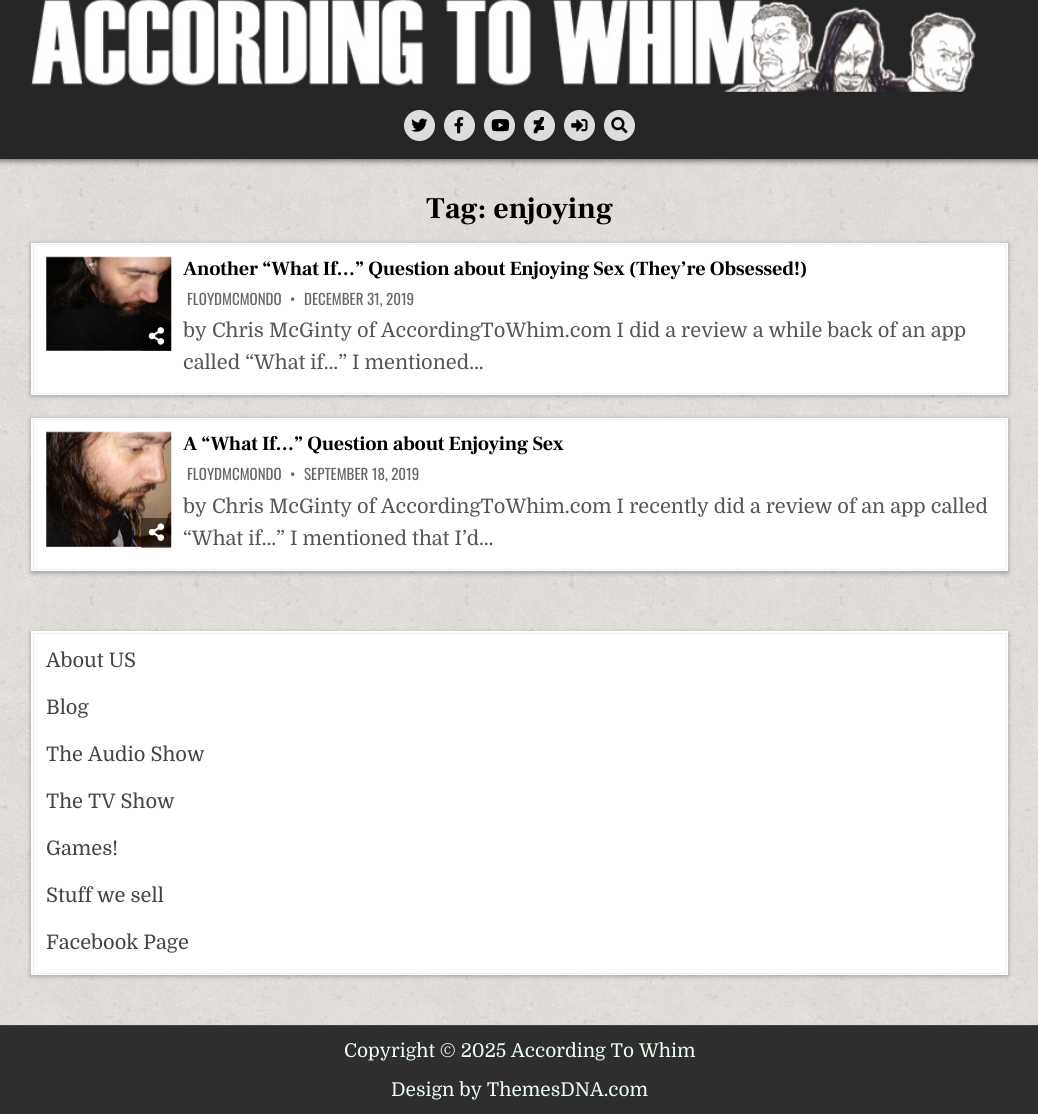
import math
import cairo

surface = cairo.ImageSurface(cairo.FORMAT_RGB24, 1038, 1114)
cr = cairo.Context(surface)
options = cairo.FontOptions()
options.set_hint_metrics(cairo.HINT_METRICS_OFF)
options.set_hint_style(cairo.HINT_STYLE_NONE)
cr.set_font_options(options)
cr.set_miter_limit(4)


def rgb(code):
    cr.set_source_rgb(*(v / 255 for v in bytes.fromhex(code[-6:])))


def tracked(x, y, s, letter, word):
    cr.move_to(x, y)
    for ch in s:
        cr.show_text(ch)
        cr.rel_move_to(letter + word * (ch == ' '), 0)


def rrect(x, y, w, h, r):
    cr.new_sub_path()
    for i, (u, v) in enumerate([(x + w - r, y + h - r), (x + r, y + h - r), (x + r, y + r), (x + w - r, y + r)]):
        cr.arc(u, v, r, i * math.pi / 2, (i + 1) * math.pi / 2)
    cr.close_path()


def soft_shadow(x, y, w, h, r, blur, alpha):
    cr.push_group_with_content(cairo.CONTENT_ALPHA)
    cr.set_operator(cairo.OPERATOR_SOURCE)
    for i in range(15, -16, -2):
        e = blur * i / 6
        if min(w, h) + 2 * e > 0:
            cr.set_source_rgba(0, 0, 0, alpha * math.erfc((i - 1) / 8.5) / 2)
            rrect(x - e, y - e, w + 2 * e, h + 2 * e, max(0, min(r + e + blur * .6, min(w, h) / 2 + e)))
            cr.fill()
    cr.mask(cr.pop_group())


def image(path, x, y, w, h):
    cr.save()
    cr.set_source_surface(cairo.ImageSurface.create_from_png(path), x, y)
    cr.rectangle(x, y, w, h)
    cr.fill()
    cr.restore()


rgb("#ffffff")
cr.paint()
image("img/1.png", 0, 159, 1038, 866)
rgb("#000000")
soft_shadow(0, -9, 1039, 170, 0, 3, 0.5)
rgb("#262626")
cr.rectangle(0, 0, 1038, 159)
cr.fill()
image("img/2.png", 31, 0, 946, 92)
rgb("#dddddd")
cr.arc(419.5, 125.5, 15.5, 0, 2 * math.pi)
cr.fill()
image("img/3.png", 411, 118, 17, 14)
cr.arc(459.5, 125.5, 15.5, 0, 2 * math.pi)
cr.fill()
image("img/4.png", 454, 117, 10, 17)
cr.arc(499.5, 125.5, 15.5, 0, 2 * math.pi)
cr.fill()
image("img/5.png", 491, 119, 19, 13)
cr.arc(539.5, 125.5, 15.5, 0, 2 * math.pi)
cr.fill()
image("img/6.png", 533, 117, 11, 17)
cr.arc(579.5, 125.5, 15.5, 0, 2 * math.pi)
cr.fill()
image("img/7.png", 571, 119, 17, 13)
cr.arc(619.5, 125.5, 15.5, 0, 2 * math.pi)
cr.fill()
image("img/8.png", 611, 117, 17, 17)
rgb("#000000")
soft_shadow(31, 244, 977, 152, 0, 2.5, 0.3)
rgb("#ffffff")
cr.rectangle(31, 243, 977, 152)
cr.fill()
cr.rectangle(33.5, 244.5, 972, 149)
rgb("#efefef")
cr.set_line_width(1)
cr.stroke()
image("img/9.png", 46, 256, 126, 95)
cr.set_source_rgba(0, 0, 0, 0.5)
cr.rectangle(141, 321, 30, 30)
cr.fill()
image("img/10.png", 148, 327, 16, 18)
rgb("#000000")
soft_shadow(31, 419, 977, 154, 0, 2.5, 0.3)
rgb("#ffffff")
cr.rectangle(31, 418, 977, 153)
cr.fill()
cr.rectangle(33.5, 419.5, 972, 150)
rgb("#efefef")
cr.stroke()
image("img/11.png", 46, 431, 126, 116)
cr.set_source_rgba(0, 0, 0, 0.5)
cr.rectangle(141, 518, 30, 30)
cr.fill()
image("img/12.png", 148, 523, 16, 18)
rgb("#000000")
soft_shadow(31, 633, 977, 343, 0, 2.5, 0.3)
rgb("#ffffff")
cr.rectangle(31, 631, 977, 344)
cr.fill()
cr.rectangle(33.5, 633.5, 972, 340)
rgb("#efefef")
cr.stroke()
rgb("#2e2e2e")
cr.rectangle(0, 1026, 1038, 88)
cr.fill()
rgb("#444444")
cr.rectangle(0, 1025, 1038, 1)
cr.fill()
cr.select_font_face("Frank Ruhl Libre", cairo.FONT_SLANT_NORMAL, cairo.FONT_WEIGHT_BOLD)
cr.set_font_size(30)
rgb("#000000")
cr.move_to(426, 218)
cr.show_text("Tag: enjoying")
cr.set_font_size(20)
tracked(183, 275, "Another “What If…” Question about Enjoying Sex (They’re Obsessed!)", -0.25, 0)
cr.select_font_face("Oswald")
cr.set_font_size(15)
rgb("#666666")
for x, y, s in [
    (187, 305, "FLOYDMCMONDO"),
    (290, 305, "•"),
    (304, 305, "DECEMBER 31, 2019"),
]:
    cr.move_to(x, y)
    cr.show_text(s)
cr.select_font_face("Domine")
cr.set_font_size(20)
rgb("#555555")
cr.move_to(183, 337)
cr.show_text("by Chris McGinty of AccordingToWhim.com I did a review a while back of an app")
cr.move_to(183, 369)
cr.show_text("called “What if…” I mentioned…")
cr.select_font_face("Frank Ruhl Libre", cairo.FONT_SLANT_NORMAL, cairo.FONT_WEIGHT_BOLD)
rgb("#000000")
tracked(183, 450, "A “What If…” Question about Enjoying Sex", -0.25, 0)
cr.select_font_face("Oswald")
cr.set_font_size(15)
rgb("#666666")
for x, y, s in [
    (187, 480, "FLOYDMCMONDO"),
    (290, 480, "•"),
    (304, 480, "SEPTEMBER 18, 2019"),
]:
    cr.move_to(x, y)
    cr.show_text(s)
cr.select_font_face("Domine")
cr.set_font_size(20)
rgb("#555555")
cr.move_to(183, 513)
cr.show_text("by Chris McGinty of AccordingToWhim.com I recently did a review of an app called")
cr.move_to(183, 545)
cr.show_text("“What if…” I mentioned that I’d…")
rgb("#444444")
for x, y, s in [
    (46, 667, "About US"),
    (46, 714, "Blog"),
    (46, 761, "The Audio Show"),
    (46, 808, "The TV Show"),
    (46, 855, "Games!"),
    (46, 902, "Stuff we sell"),
    (46, 949, "Facebook Page"),
]:
    cr.move_to(x, y)
    cr.show_text(s)
cr.set_font_size(19)
rgb("#ecfff1")
cr.move_to(344, 1057)
cr.show_text("Copyright © 2025 According To Whim")
cr.move_to(391, 1096)
cr.show_text("Design by ThemesDNA.com")
surface.write_to_png("page.png")
